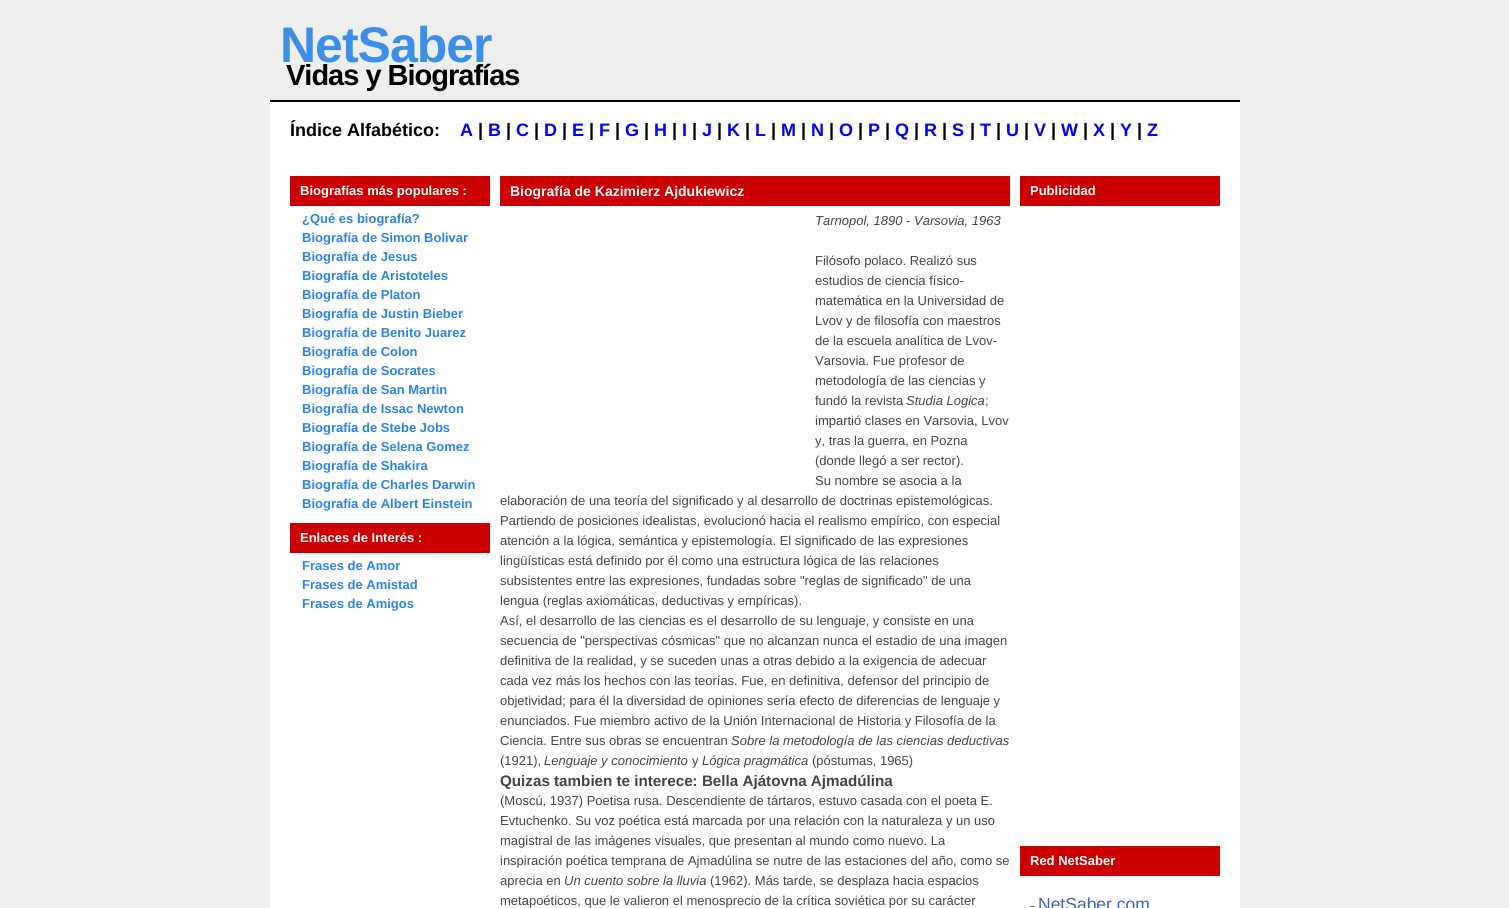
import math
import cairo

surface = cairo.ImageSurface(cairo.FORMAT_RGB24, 1509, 908)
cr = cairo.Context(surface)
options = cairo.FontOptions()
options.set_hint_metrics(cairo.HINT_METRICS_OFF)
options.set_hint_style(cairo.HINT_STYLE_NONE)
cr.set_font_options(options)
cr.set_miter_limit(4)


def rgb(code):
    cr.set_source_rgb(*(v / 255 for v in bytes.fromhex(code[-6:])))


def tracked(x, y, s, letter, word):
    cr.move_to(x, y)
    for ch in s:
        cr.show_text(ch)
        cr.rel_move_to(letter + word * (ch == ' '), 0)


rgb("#eeeeee")
cr.paint()
for x, y, w, h, color in [
    (270, 100, 970, 2, "#000000"),
    (270, 102, 970, 806, "#ffffff"),
    (290, 176, 200, 30, "#cc0001"),
    (290, 523, 200, 30, "#cc0001"),
    (500, 176, 510, 30, "#cc0001"),
    (1020, 176, 200, 30, "#cc0001"),
    (1020, 846, 200, 30, "#cc0001"),
]:
    rgb(color)
    cr.rectangle(x, y, w, h)
    cr.fill()
cr.select_font_face("Liberation Sans", cairo.FONT_SLANT_NORMAL, cairo.FONT_WEIGHT_BOLD)
cr.set_font_size(50)
rgb("#3b8fe9")
tracked(280, 62, "NetSaber", -1, 0)
cr.set_font_size(29)
rgb("#000000")
tracked(286, 85, "Vidas y Biografías", -1, 0)
cr.set_font_size(18)
cr.move_to(290, 136)
cr.show_text("Índice Alfabético:")
rgb("#0000ff")
cr.move_to(460, 136)
cr.show_text("A")
rgb("#000000")
cr.move_to(478, 136)
cr.show_text("|")
rgb("#0000ff")
cr.move_to(488, 136)
cr.show_text("B")
rgb("#000000")
cr.move_to(506, 136)
cr.show_text("|")
rgb("#0000ff")
cr.move_to(516, 136)
cr.show_text("C")
rgb("#000000")
cr.move_to(534, 136)
cr.show_text("|")
rgb("#0000ff")
cr.move_to(544, 136)
cr.show_text("D")
rgb("#000000")
cr.move_to(562, 136)
cr.show_text("|")
rgb("#0000ff")
cr.move_to(572, 136)
cr.show_text("E")
rgb("#000000")
cr.move_to(589, 136)
cr.show_text("|")
rgb("#0000ff")
cr.move_to(599, 136)
cr.show_text("F")
rgb("#000000")
cr.move_to(615, 136)
cr.show_text("|")
rgb("#0000ff")
cr.move_to(625, 136)
cr.show_text("G")
rgb("#000000")
cr.move_to(644, 136)
cr.show_text("|")
rgb("#0000ff")
cr.move_to(654, 136)
cr.show_text("H")
rgb("#000000")
cr.move_to(672, 136)
cr.show_text("|")
rgb("#0000ff")
cr.move_to(682, 136)
cr.show_text("I")
rgb("#000000")
cr.move_to(692, 136)
cr.show_text("|")
rgb("#0000ff")
cr.move_to(702, 136)
cr.show_text("J")
rgb("#000000")
cr.move_to(717, 136)
cr.show_text("|")
rgb("#0000ff")
cr.move_to(727, 136)
cr.show_text("K")
rgb("#000000")
cr.move_to(745, 136)
cr.show_text("|")
rgb("#0000ff")
cr.move_to(755, 136)
cr.show_text("L")
rgb("#000000")
cr.move_to(771, 136)
cr.show_text("|")
rgb("#0000ff")
cr.move_to(781, 136)
cr.show_text("M")
rgb("#000000")
cr.move_to(801, 136)
cr.show_text("|")
rgb("#0000ff")
cr.move_to(811, 136)
cr.show_text("N")
rgb("#000000")
cr.move_to(829, 136)
cr.show_text("|")
rgb("#0000ff")
cr.move_to(839, 136)
cr.show_text("O")
rgb("#000000")
cr.move_to(858, 136)
cr.show_text("|")
rgb("#0000ff")
cr.move_to(868, 136)
cr.show_text("P")
rgb("#000000")
cr.move_to(885, 136)
cr.show_text("|")
rgb("#0000ff")
cr.move_to(895, 136)
cr.show_text("Q")
rgb("#000000")
cr.move_to(914, 136)
cr.show_text("|")
rgb("#0000ff")
cr.move_to(924, 136)
cr.show_text("R")
rgb("#000000")
cr.move_to(942, 136)
cr.show_text("|")
rgb("#0000ff")
cr.move_to(952, 136)
cr.show_text("S")
rgb("#000000")
cr.move_to(970, 136)
cr.show_text("|")
rgb("#0000ff")
cr.move_to(980, 136)
cr.show_text("T")
rgb("#000000")
cr.move_to(996, 136)
cr.show_text("|")
rgb("#0000ff")
cr.move_to(1006, 136)
cr.show_text("U")
rgb("#000000")
cr.move_to(1024, 136)
cr.show_text("|")
rgb("#0000ff")
cr.move_to(1034, 136)
cr.show_text("V")
rgb("#000000")
cr.move_to(1051, 136)
cr.show_text("|")
rgb("#0000ff")
cr.move_to(1061, 136)
cr.show_text("W")
rgb("#000000")
cr.move_to(1083, 136)
cr.show_text("|")
rgb("#0000ff")
cr.move_to(1093, 136)
cr.show_text("X")
rgb("#000000")
cr.move_to(1110, 136)
cr.show_text("|")
rgb("#0000ff")
cr.move_to(1120, 136)
cr.show_text("Y")
rgb("#000000")
cr.move_to(1137, 136)
cr.show_text("|")
rgb("#0000ff")
cr.move_to(1147, 136)
cr.show_text("Z")
cr.set_font_size(13)
rgb("#ffffff")
cr.move_to(300, 195)
cr.show_text("Biografías más populares :")
rgb("#2a84e5")
for x, y, s in [
    (302, 223, "¿Qué es biografía?"),
    (302, 242, "Biografía de Simon Bolivar"),
    (302, 261, "Biografía de Jesus"),
    (302, 280, "Biografía de Aristoteles"),
    (302, 299, "Biografía de Platon"),
    (302, 318, "Biografía de Justin Bieber"),
    (302, 337, "Biografía de Benito Juarez"),
    (302, 356, "Biografía de Colon"),
    (302, 375, "Biografía de Socrates"),
    (302, 394, "Biografía de San Martin"),
    (302, 413, "Biografía de Issac Newton"),
    (302, 432, "Biografía de Stebe Jobs"),
    (302, 451, "Biografía de Selena Gomez"),
    (302, 470, "Biografía de Shakira"),
    (302, 489, "Biografía de Charles Darwin"),
    (302, 508, "Biografía de Albert Einstein"),
]:
    cr.move_to(x, y)
    cr.show_text(s)
rgb("#ffffff")
cr.move_to(300, 542)
cr.show_text("Enlaces de Interés :")
rgb("#2a84e5")
for x, y, s in [
    (302, 570, "Frases de Amor"),
    (302, 589, "Frases de Amistad"),
    (302, 608, "Frases de Amigos"),
]:
    cr.move_to(x, y)
    cr.show_text(s)
cr.set_font_size(14)
rgb("#ffffff")
cr.move_to(510, 196)
cr.show_text("Biografía de Kazimierz Ajdukiewicz")
cr.select_font_face("Liberation Sans", cairo.FONT_SLANT_ITALIC)
cr.set_font_size(13)
rgb("#444444")
cr.move_to(815, 225)
cr.show_text("Tarnopol, 1890 - Varsovia, 1963")
cr.select_font_face("Liberation Sans")
for x, y, s in [
    (815, 265, "Filósofo polaco. Realizó sus"),
    (815, 285, "estudios de ciencia físico-"),
    (815, 305, "matemática en la Universidad de"),
    (815, 325, "Lvov y de filosofía con maestros"),
    (815, 345, "de la escuela analítica de Lvov-"),
    (815, 365, "Varsovia. Fue profesor de"),
    (815, 385, "metodología de las ciencias y"),
    (815, 405, "fundó la revista"),
]:
    cr.move_to(x, y)
    cr.show_text(s)
cr.select_font_face("Liberation Sans", cairo.FONT_SLANT_ITALIC)
cr.move_to(906, 405)
cr.show_text("Studia Logica")
cr.select_font_face("Liberation Sans")
for x, y, s in [
    (985, 405, ";"),
    (815, 425, "impartió clases en Varsovia, Lvov"),
    (815, 445, "y, tras la guerra, en Pozna"),
    (815, 465, "(donde llegó a ser rector)."),
    (815, 485, "Su nombre se asocia a la"),
    (500, 505, "elaboración de una teoría del significado y al desarrollo de doctrinas epistemológicas."),
    (500, 525, "Partiendo de posiciones idealistas, evolucionó hacia el realismo empírico, con especial"),
    (500, 545, "atención a la lógica, semántica y epistemología. El significado de las expresiones"),
    (500, 565, "lingüísticas está definido por él como una estructura lógica de las relaciones"),
    (500, 585, "subsistentes entre las expresiones, fundadas sobre \"reglas de significado\" de una"),
    (500, 605, "lengua (reglas axiomáticas, deductivas y empíricas)."),
    (500, 625, "Así, el desarrollo de las ciencias es el desarrollo de su lenguaje, y consiste en una"),
    (500, 645, "secuencia de \"perspectivas cósmicas\" que no alcanzan nunca el estadio de una imagen"),
    (500, 665, "definitiva de la realidad, y se suceden unas a otras debido a la exigencia de adecuar"),
    (500, 685, "cada vez más los hechos con las teorías. Fue, en definitiva, defensor del principio de"),
    (500, 705, "objetividad; para él la diversidad de opiniones sería efecto de diferencias de lenguaje y"),
    (500, 725, "enunciados. Fue miembro activo de la Unión Internacional de Historia y Filosofía de la"),
    (500, 745, "Ciencia. Entre sus obras se encuentran"),
]:
    cr.move_to(x, y)
    cr.show_text(s)
cr.select_font_face("Liberation Sans", cairo.FONT_SLANT_ITALIC)
cr.move_to(731, 745)
cr.show_text("Sobre la metodología de las ciencias deductivas")
cr.select_font_face("Liberation Sans")
cr.move_to(500, 765)
cr.show_text("(1921),")
cr.select_font_face("Liberation Sans", cairo.FONT_SLANT_ITALIC)
cr.move_to(544, 765)
cr.show_text("Lenguaje y conocimiento")
cr.select_font_face("Liberation Sans")
cr.move_to(692, 765)
cr.show_text("y")
cr.select_font_face("Liberation Sans", cairo.FONT_SLANT_ITALIC)
cr.move_to(702, 765)
cr.show_text("Lógica pragmática")
cr.select_font_face("Liberation Sans")
cr.move_to(812, 765)
cr.show_text("(póstumas, 1965)")
cr.select_font_face("Liberation Sans", cairo.FONT_SLANT_NORMAL, cairo.FONT_WEIGHT_BOLD)
cr.set_font_size(15.2)
cr.move_to(500, 786)
cr.show_text("Quizas tambien te interece: Bella Ajátovna Ajmadúlina")
cr.select_font_face("Liberation Sans")
cr.set_font_size(13)
for x, y, s in [
    (500, 805, "(Moscú, 1937) Poetisa rusa. Descendiente de tártaros, estuvo casada con el poeta E."),
    (500, 825, "Evtuchenko. Su voz poética está marcada por una relación con la naturaleza y un uso"),
    (500, 845, "magistral de las imágenes visuales, que presentan al mundo como nuevo. La"),
    (500, 865, "inspiración poética temprana de Ajmadúlina se nutre de las estaciones del año, como se"),
    (500, 885, "aprecia en"),
]:
    cr.move_to(x, y)
    cr.show_text(s)
cr.select_font_face("Liberation Sans", cairo.FONT_SLANT_ITALIC)
cr.move_to(564, 885)
cr.show_text("Un cuento sobre la lluvia")
cr.select_font_face("Liberation Sans")
cr.move_to(710, 885)
cr.show_text("(1962). Más tarde, se desplaza hacia espacios")
cr.move_to(500, 905)
cr.show_text("metapoéticos, que le valieron el menosprecio de la crítica soviética por su carácter")
cr.select_font_face("Liberation Sans", cairo.FONT_SLANT_NORMAL, cairo.FONT_WEIGHT_BOLD)
rgb("#ffffff")
cr.move_to(1030, 195)
cr.show_text("Publicidad")
cr.move_to(1030, 865)
cr.show_text("Red NetSaber")
cr.select_font_face("Liberation Sans")
rgb("#444444")
cr.move_to(1030, 910)
cr.show_text("-")
cr.set_font_size(17.5)
rgb("#4063b7")
cr.move_to(1038, 910)
cr.show_text("NetSaber.com")
surface.write_to_png("page.png")
